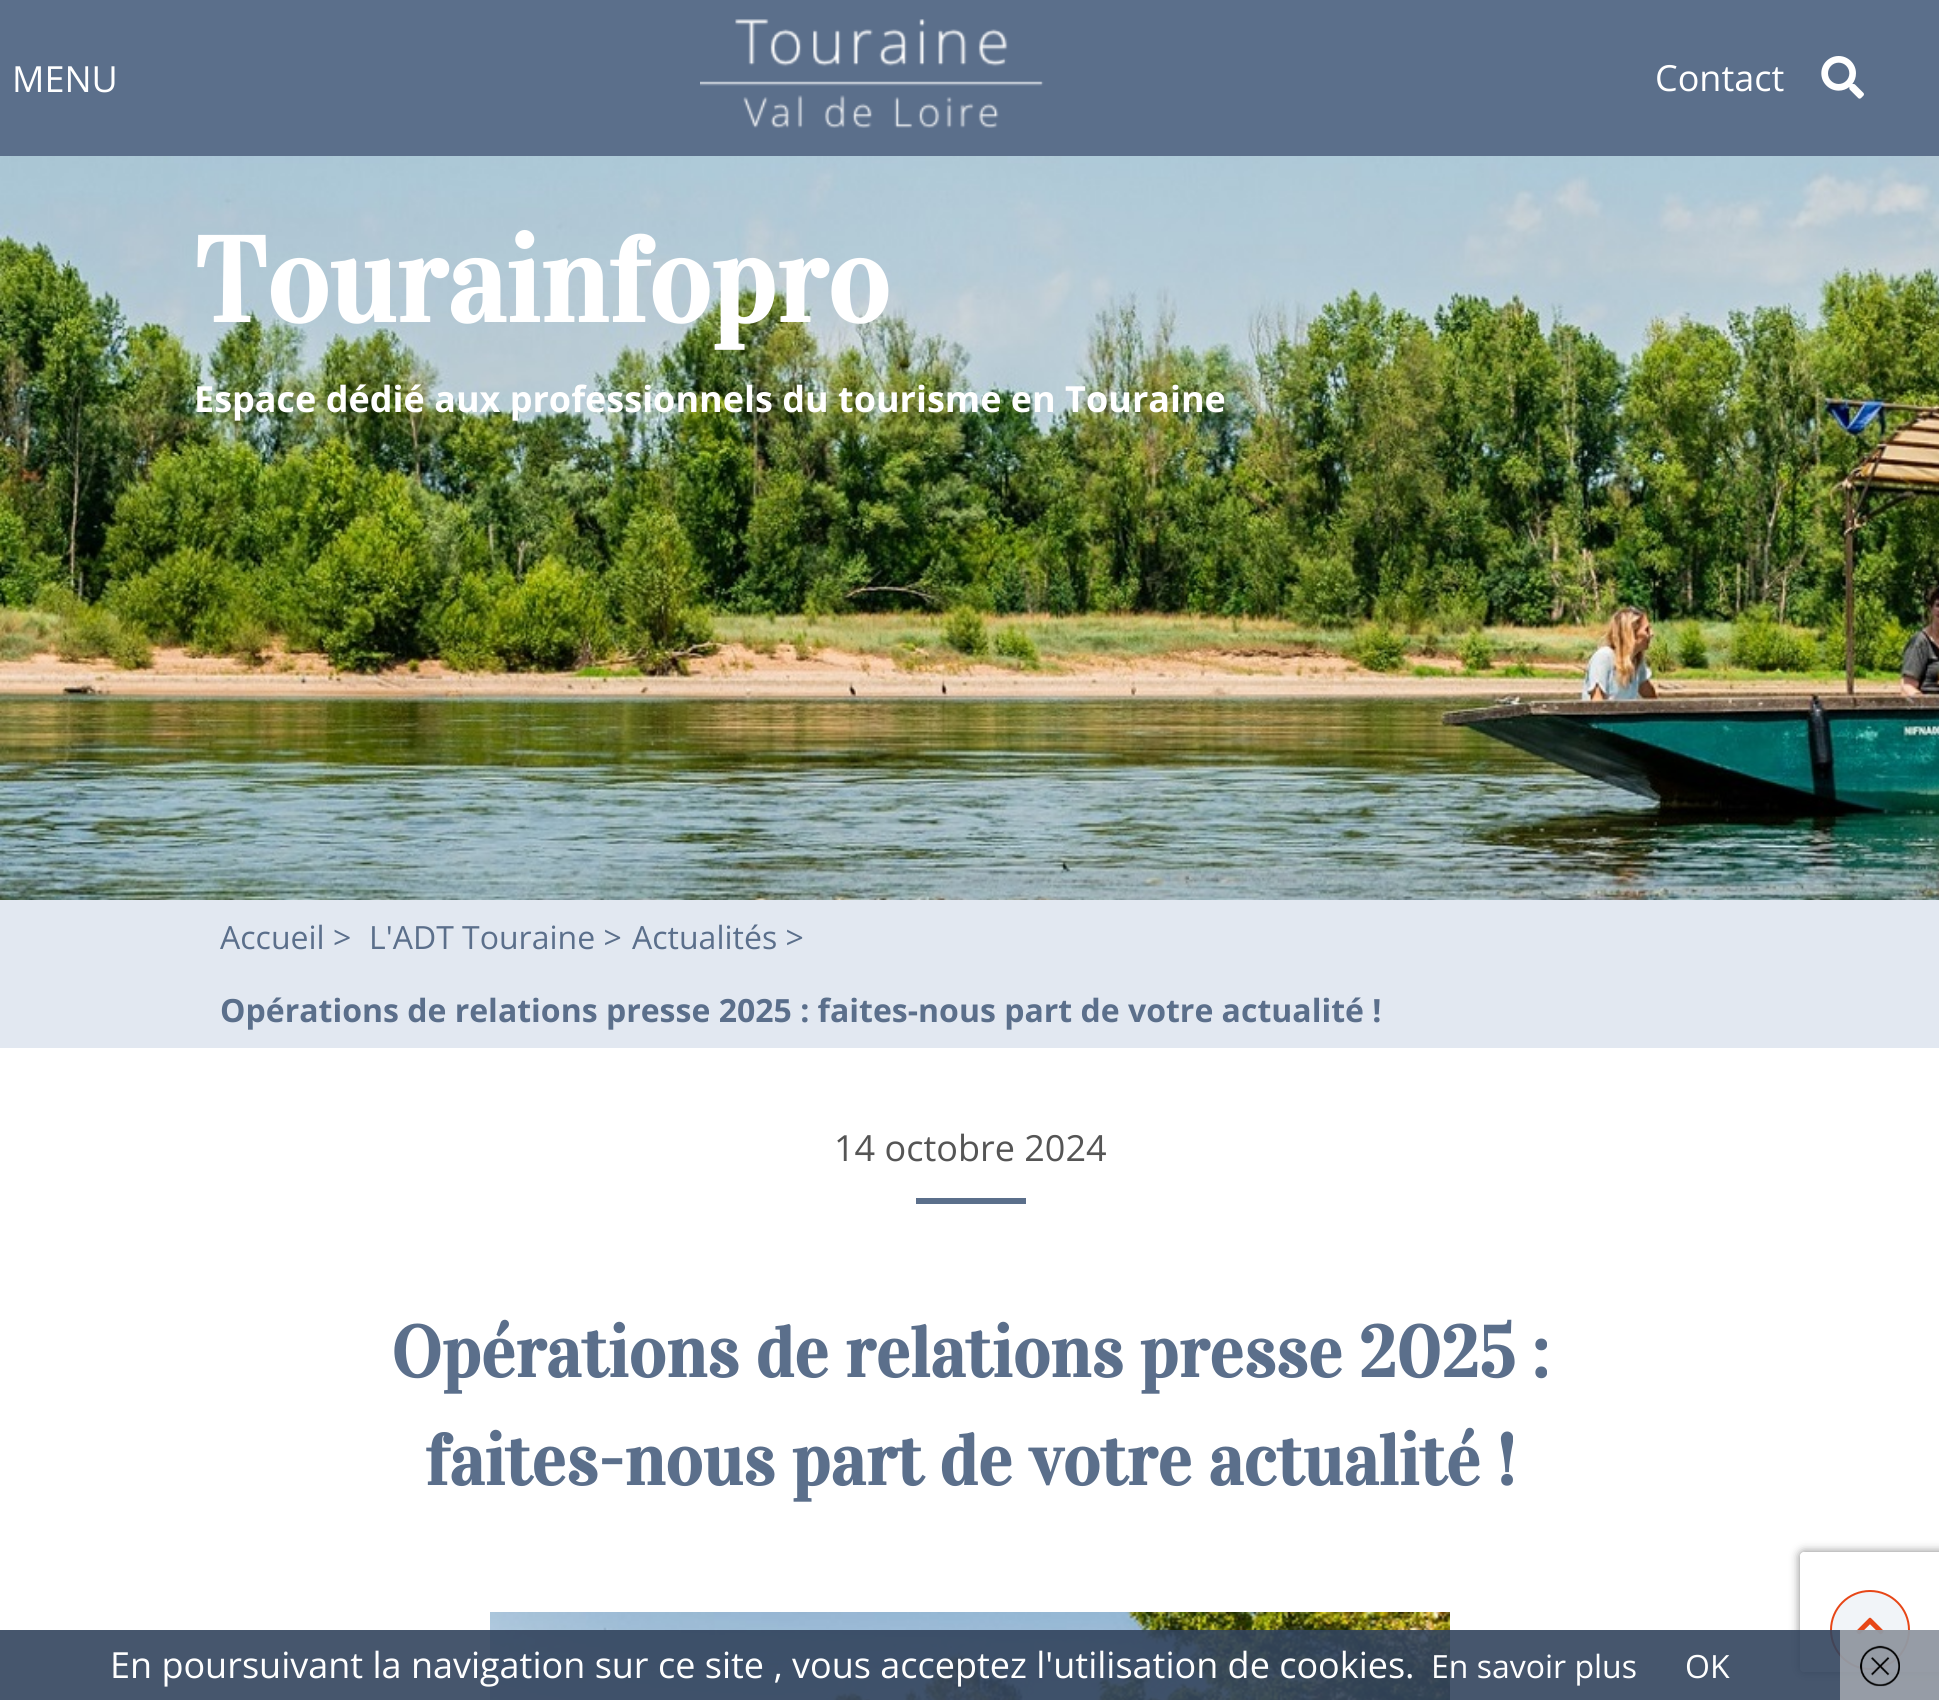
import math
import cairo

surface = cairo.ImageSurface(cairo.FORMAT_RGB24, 1939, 1700)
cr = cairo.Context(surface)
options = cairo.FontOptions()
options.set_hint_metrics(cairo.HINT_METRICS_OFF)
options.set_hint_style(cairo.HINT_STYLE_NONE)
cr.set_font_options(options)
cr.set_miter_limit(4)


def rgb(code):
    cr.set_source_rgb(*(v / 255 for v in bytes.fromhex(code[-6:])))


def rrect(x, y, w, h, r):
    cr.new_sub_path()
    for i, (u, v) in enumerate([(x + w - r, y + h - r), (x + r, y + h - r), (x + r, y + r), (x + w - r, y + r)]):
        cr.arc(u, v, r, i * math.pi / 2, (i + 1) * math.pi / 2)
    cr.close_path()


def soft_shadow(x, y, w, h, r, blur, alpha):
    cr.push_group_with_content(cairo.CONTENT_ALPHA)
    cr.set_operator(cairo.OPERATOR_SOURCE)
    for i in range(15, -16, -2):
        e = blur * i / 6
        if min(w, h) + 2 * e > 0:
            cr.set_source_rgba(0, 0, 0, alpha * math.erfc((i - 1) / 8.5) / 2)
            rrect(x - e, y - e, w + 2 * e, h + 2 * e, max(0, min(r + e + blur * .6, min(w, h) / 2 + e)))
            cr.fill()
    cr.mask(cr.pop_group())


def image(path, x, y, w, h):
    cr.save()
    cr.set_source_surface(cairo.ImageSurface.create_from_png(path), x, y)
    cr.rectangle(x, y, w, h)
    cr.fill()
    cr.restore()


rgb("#ffffff")
cr.paint()
rgb("#5b6f8b")
cr.rectangle(0, 0, 1939, 156)
cr.fill()
image("img/1.png", 700, 19, 344, 109)
image("img/2.png", 1821, 56, 43, 43)
image("img/3.png", 0, 156, 1939, 744)
rgb("#e2e8f1")
cr.rectangle(0, 900, 1939, 148)
cr.fill()
rgb("#5b6f8b")
cr.rectangle(916, 1198, 110, 6)
cr.fill()
image("img/4.png", 490, 1612, 960, 88)
cr.save()
cr.set_fill_rule(cairo.FILL_RULE_EVEN_ODD)
cr.new_path()
cr.move_to(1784, 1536)
cr.line_to(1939, 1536)
cr.line_to(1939, 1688)
cr.line_to(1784, 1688)
cr.close_path()
cr.move_to(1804, 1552)
cr.line_to(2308, 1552)
cr.curve_to(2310, 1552, 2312, 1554, 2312, 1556)
cr.line_to(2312, 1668)
cr.curve_to(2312, 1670, 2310, 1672, 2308, 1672)
cr.line_to(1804, 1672)
cr.curve_to(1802, 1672, 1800, 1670, 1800, 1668)
cr.line_to(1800, 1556)
cr.curve_to(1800, 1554, 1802, 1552, 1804, 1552)
cr.close_path()
cr.clip()
rgb("#808080")
soft_shadow(1800, 1552, 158, 120, 4, 5, 1)
cr.restore()
rgb("#f1f4f8")
cr.arc(1870, 1630, 39, 0, 2 * math.pi)
cr.fill_preserve()
rgb("#e74617")
cr.stroke()
image("img/6.png", 1856, 1617, 28, 18)
cr.set_source_rgba(0.196, 0.267, 0.365, 0.9)
cr.rectangle(0, 1630, 1939, 70)
cr.fill()
cr.set_source_rgba(0.8, 0.8, 0.8, 0.6)
cr.rectangle(1840, 1630, 99, 70)
cr.fill()
image("img/5.png", 1860, 1645, 40, 42)
cr.select_font_face("Open Sans")
cr.set_font_size(36)
rgb("#ffffff")
cr.move_to(12, 92)
cr.show_text("MENU")
cr.move_to(1655, 91)
cr.show_text("Contact")
cr.select_font_face("Vidaloka", cairo.FONT_SLANT_NORMAL, cairo.FONT_WEIGHT_BOLD)
cr.set_font_size(120)
cr.move_to(194, 322)
cr.show_text("Tourainfopro")
cr.select_font_face("Open Sans", cairo.FONT_SLANT_NORMAL, cairo.FONT_WEIGHT_BOLD)
cr.set_font_size(36)
cr.move_to(194, 412)
cr.show_text("Espace dédié aux professionnels du tourisme en Touraine")
cr.select_font_face("Open Sans")
cr.set_font_size(32)
rgb("#5b6f8b")
for x, y, s in [
    (220, 949, "Accueil >"),
    (369, 949, "L'ADT Touraine >"),
    (632, 949, "Actualités >"),
]:
    cr.move_to(x, y)
    cr.show_text(s)
cr.select_font_face("Open Sans", cairo.FONT_SLANT_NORMAL, cairo.FONT_WEIGHT_BOLD)
cr.move_to(220, 1022)
cr.show_text("Opérations de relations presse 2025 : faites-nous part de votre actualité !")
cr.select_font_face("Open Sans")
cr.set_font_size(36)
rgb("#555555")
cr.move_to(834, 1161)
cr.show_text("14 octobre 2024")
cr.select_font_face("Vidaloka", cairo.FONT_SLANT_NORMAL, cairo.FONT_WEIGHT_BOLD)
cr.set_font_size(72)
rgb("#5b6f8b")
cr.move_to(391, 1377)
cr.show_text("Opérations de relations presse 2025 :")
cr.move_to(425, 1485)
cr.show_text("faites-nous part de votre actualité !")
cr.select_font_face("Open Sans")
cr.set_font_size(36)
rgb("#ffffff")
cr.move_to(110, 1678)
cr.show_text("En poursuivant la navigation sur ce site , vous acceptez l'utilisation de cookies.")
cr.set_font_size(32)
cr.move_to(1431, 1678)
cr.show_text("En savoir plus")
cr.move_to(1685, 1678)
cr.show_text("OK")
surface.write_to_png("page.png")
